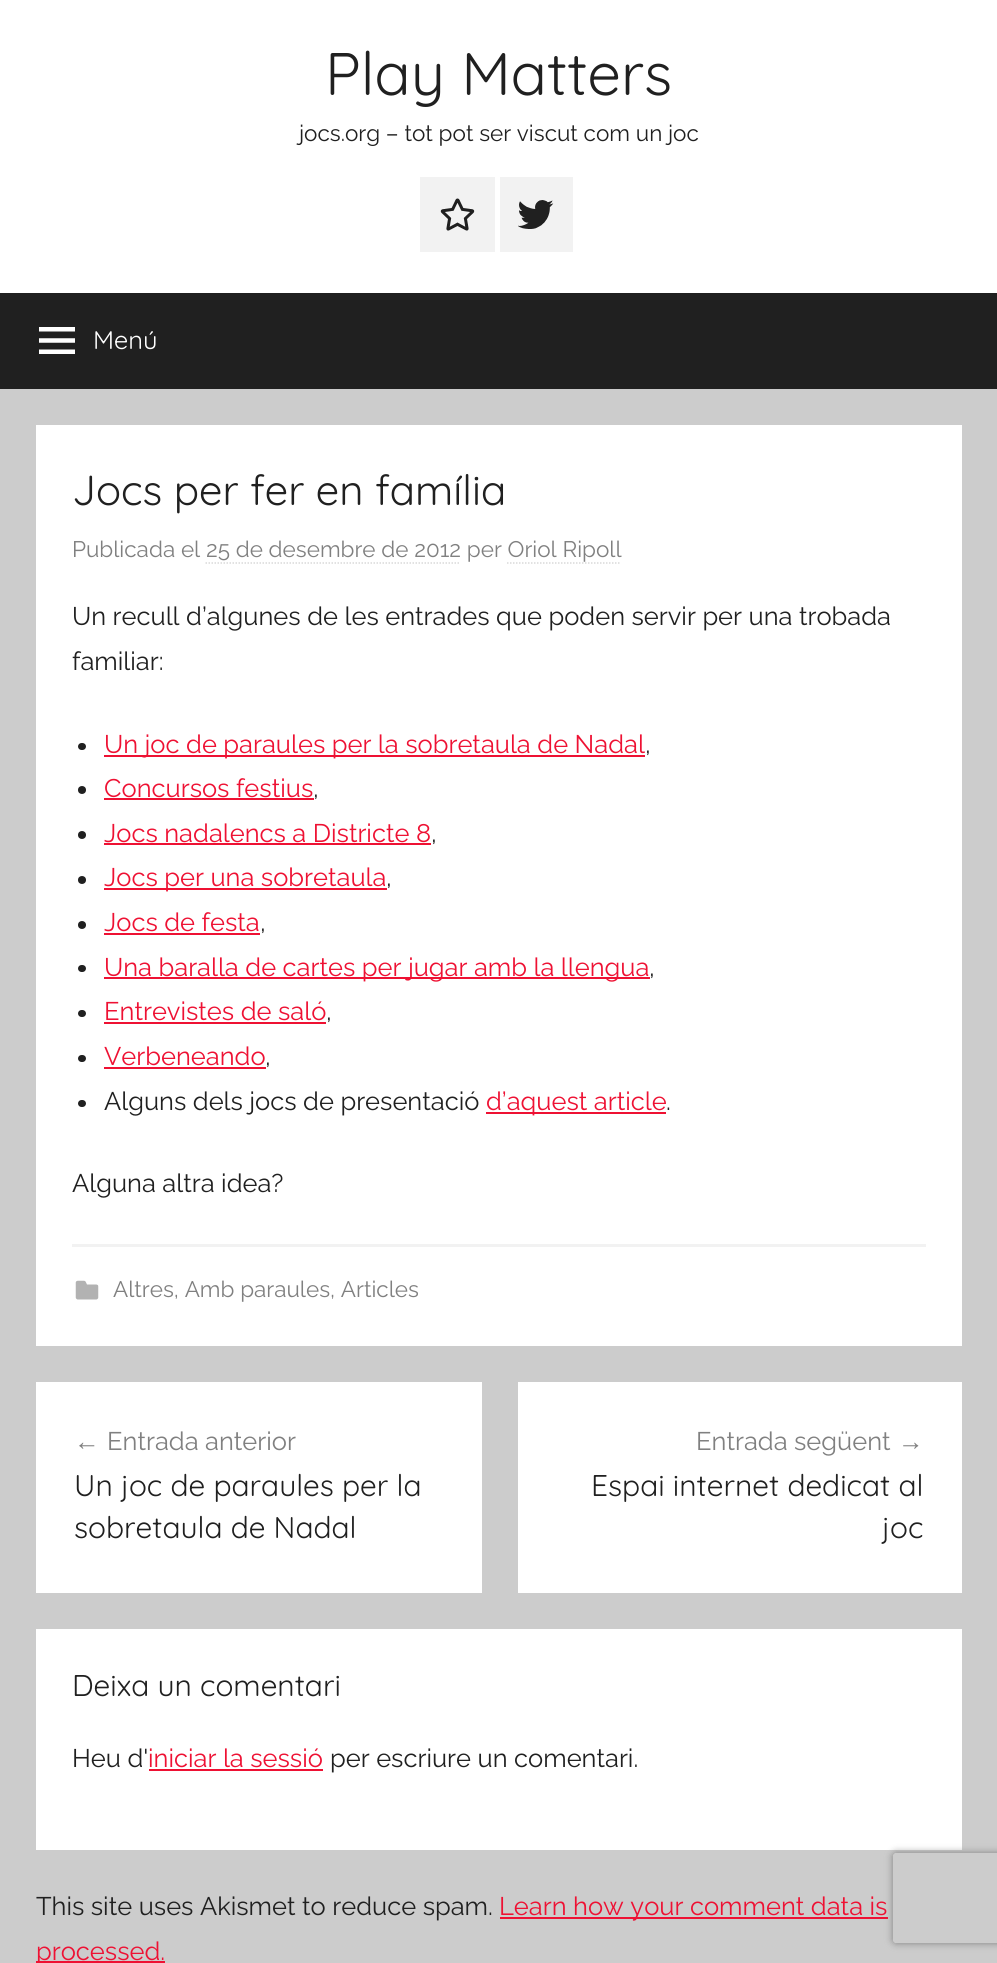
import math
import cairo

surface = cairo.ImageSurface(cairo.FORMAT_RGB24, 997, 1963)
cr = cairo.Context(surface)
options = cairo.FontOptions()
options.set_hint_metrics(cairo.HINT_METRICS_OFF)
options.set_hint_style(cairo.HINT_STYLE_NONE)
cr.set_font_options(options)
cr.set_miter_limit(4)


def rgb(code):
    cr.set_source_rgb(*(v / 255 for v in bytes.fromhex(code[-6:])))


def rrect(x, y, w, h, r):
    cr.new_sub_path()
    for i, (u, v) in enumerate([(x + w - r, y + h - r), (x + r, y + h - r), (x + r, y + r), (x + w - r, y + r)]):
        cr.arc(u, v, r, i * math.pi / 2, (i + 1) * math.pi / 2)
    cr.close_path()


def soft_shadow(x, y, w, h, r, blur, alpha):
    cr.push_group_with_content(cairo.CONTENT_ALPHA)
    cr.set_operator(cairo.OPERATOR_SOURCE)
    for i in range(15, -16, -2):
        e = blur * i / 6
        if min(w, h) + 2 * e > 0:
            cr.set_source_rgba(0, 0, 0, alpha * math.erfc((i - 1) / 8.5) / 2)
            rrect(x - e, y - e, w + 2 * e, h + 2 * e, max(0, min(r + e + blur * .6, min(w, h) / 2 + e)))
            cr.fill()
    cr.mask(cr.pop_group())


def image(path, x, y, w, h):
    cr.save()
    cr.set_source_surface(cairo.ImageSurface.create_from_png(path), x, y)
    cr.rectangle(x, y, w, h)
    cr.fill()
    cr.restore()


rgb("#cccccc")
cr.paint()
rgb("#ffffff")
cr.rectangle(0, 0, 997, 293)
cr.fill()
rgb("#f2f2f2")
cr.rectangle(420, 177, 75, 75)
cr.fill()
image("img/1.png", 440, 198, 35, 33)
cr.rectangle(500, 177, 73, 75)
cr.fill()
image("img/2.png", 518, 200, 36, 29)
rgb("#202020")
cr.rectangle(0, 293, 997, 96)
cr.fill()
image("img/3.png", 39, 327, 36, 27)
rgb("#ffffff")
cr.rectangle(36, 425, 926, 921)
cr.fill()
cr.new_path()
cr.move_to(205.5, 563)
cr.line_to(460.5, 563)
rgb("#d9d9d9")
cr.set_line_width(1.5)
cr.set_dash([1.5, 1.5])
cr.stroke()
cr.new_path()
cr.move_to(507, 563)
cr.line_to(621, 563)
cr.stroke()
rgb("#202020")
rrect(78, 743, 8, 7, 3.5)
cr.fill()
rgb("#ee1133")
cr.rectangle(104, 755, 541, 2)
cr.fill()
rgb("#202020")
cr.arc(82, 790, 4, 0, 2 * math.pi)
cr.fill()
rgb("#ee1133")
cr.rectangle(104, 798, 210, 2)
cr.fill()
rgb("#202020")
cr.arc(82, 835, 4, 0, 2 * math.pi)
cr.fill()
rgb("#ee1133")
cr.rectangle(104, 843, 327, 2)
cr.fill()
rgb("#202020")
cr.arc(82, 880, 4, 0, 2 * math.pi)
cr.fill()
rgb("#ee1133")
cr.rectangle(104, 888, 283, 2)
cr.fill()
rgb("#202020")
cr.arc(82, 925, 4, 0, 2 * math.pi)
cr.fill()
rgb("#ee1133")
cr.rectangle(104, 933, 156, 2)
cr.fill()
rgb("#202020")
rrect(78, 965, 8, 7, 3.5)
cr.fill()
rgb("#ee1133")
cr.rectangle(104, 977, 546, 2)
cr.fill()
rgb("#202020")
rrect(78, 1010, 8, 7, 3.5)
cr.fill()
rgb("#ee1133")
cr.rectangle(104, 1022, 222, 2)
cr.fill()
rgb("#202020")
rrect(78, 1055, 8, 7, 3.5)
cr.fill()
rgb("#ee1133")
cr.rectangle(104, 1067, 162, 2)
cr.fill()
rgb("#202020")
rrect(78, 1100, 8, 7, 3.5)
cr.fill()
rgb("#ee1133")
cr.rectangle(486, 1112, 180, 2)
cr.fill()
rgb("#f2f2f2")
cr.rectangle(72, 1244, 854, 3)
cr.fill()
image("img/4.png", 75, 1280, 24, 20)
for x, y, w, h, color in [
    (36, 1382, 446, 211, "#ffffff"),
    (518, 1382, 444, 211, "#ffffff"),
    (36, 1629, 926, 221, "#ffffff"),
    (149, 1769, 174, 2, "#ee1133"),
    (500, 1917, 388, 2, "#ee1133"),
    (36, 1961, 129, 2, "#ee1133"),
]:
    rgb(color)
    cr.rectangle(x, y, w, h)
    cr.fill()
cr.save()
cr.set_fill_rule(cairo.FILL_RULE_EVEN_ODD)
cr.new_path()
cr.move_to(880, 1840)
cr.line_to(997, 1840)
cr.line_to(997, 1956)
cr.line_to(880, 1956)
cr.close_path()
cr.move_to(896, 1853)
cr.line_to(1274, 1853)
cr.curve_to(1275.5, 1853, 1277, 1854.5, 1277, 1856)
cr.line_to(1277, 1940)
cr.curve_to(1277, 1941.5, 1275.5, 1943, 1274, 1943)
cr.line_to(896, 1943)
cr.curve_to(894.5, 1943, 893, 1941.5, 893, 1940)
cr.line_to(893, 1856)
cr.curve_to(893, 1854.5, 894.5, 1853, 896, 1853)
cr.close_path()
cr.clip()
rgb("#808080")
soft_shadow(893, 1853, 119, 90, 3, 4, 1)
cr.restore()
cr.select_font_face("Quicksand Light")
cr.set_font_size(60)
rgb("#202020")
cr.move_to(325, 95)
cr.show_text("Play Matters")
cr.select_font_face("Raleway Thin")
cr.set_font_size(22.5)
cr.move_to(299, 141)
cr.show_text("jocs.org – tot pot ser viscut com un joc")
cr.select_font_face("Quicksand Light")
cr.set_font_size(25.5)
rgb("#ffffff")
cr.move_to(93, 349)
cr.show_text("Menú")
cr.set_font_size(42)
rgb("#202020")
cr.move_to(72, 505)
cr.show_text("Jocs per fer en família")
cr.select_font_face("Raleway Thin")
cr.set_font_size(22.5)
rgb("#808080")
cr.move_to(72, 557)
cr.show_text("Publicada el 25 de desembre de 2012 per Oriol Ripoll")
cr.set_font_size(25.5)
rgb("#202020")
cr.move_to(72, 625)
cr.show_text("Un recull d’algunes de les entrades que poden servir per una trobada")
cr.move_to(72, 670)
cr.show_text("familiar:")
rgb("#ee1133")
cr.move_to(104, 753)
cr.show_text("Un joc de paraules per la sobretaula de Nadal")
rgb("#202020")
cr.move_to(645, 753)
cr.show_text(",")
rgb("#ee1133")
cr.move_to(104, 797)
cr.show_text("Concursos festius")
rgb("#202020")
cr.move_to(313, 797)
cr.show_text(",")
rgb("#ee1133")
cr.move_to(104, 842)
cr.show_text("Jocs nadalencs a Districte 8")
rgb("#202020")
cr.move_to(431, 842)
cr.show_text(",")
rgb("#ee1133")
cr.move_to(104, 886)
cr.show_text("Jocs per una sobretaula")
rgb("#202020")
cr.move_to(386, 886)
cr.show_text(",")
rgb("#ee1133")
cr.move_to(104, 931)
cr.show_text("Jocs de festa")
rgb("#202020")
cr.move_to(260, 931)
cr.show_text(",")
rgb("#ee1133")
cr.move_to(104, 976)
cr.show_text("Una baralla de cartes per jugar amb la llengua")
rgb("#202020")
cr.move_to(649, 976)
cr.show_text(",")
rgb("#ee1133")
cr.move_to(104, 1020)
cr.show_text("Entrevistes de saló")
rgb("#202020")
cr.move_to(326, 1020)
cr.show_text(",")
rgb("#ee1133")
cr.move_to(104, 1065)
cr.show_text("Verbeneando")
rgb("#202020")
cr.move_to(265, 1065)
cr.show_text(",")
cr.move_to(104, 1110)
cr.show_text("Alguns dels jocs de presentació")
rgb("#ee1133")
cr.move_to(486, 1110)
cr.show_text("d’aquest article")
rgb("#202020")
cr.move_to(666, 1110)
cr.show_text(".")
cr.move_to(72, 1192)
cr.show_text("Alguna altra idea?")
cr.set_font_size(22.5)
rgb("#808080")
cr.move_to(113, 1297)
cr.show_text("Altres, Amb paraules, Articles")
cr.select_font_face("Liberation Sans")
cr.set_font_size(25.5)
cr.move_to(74, 1450)
cr.show_text("←")
cr.select_font_face("Raleway Thin")
cr.move_to(107, 1450)
cr.show_text("Entrada anterior")
cr.select_font_face("Quicksand Light")
cr.set_font_size(30)
rgb("#202020")
cr.move_to(74, 1496)
cr.show_text("Un joc de paraules per la")
cr.move_to(74, 1538)
cr.show_text("sobretaula de Nadal")
cr.select_font_face("Raleway Thin")
cr.set_font_size(25.5)
rgb("#808080")
cr.move_to(696, 1450)
cr.show_text("Entrada següent")
cr.select_font_face("Liberation Sans")
cr.move_to(898, 1450)
cr.show_text("→")
cr.select_font_face("Quicksand Light")
cr.set_font_size(30)
rgb("#202020")
for x, y, s in [
    (591, 1496, "Espai internet dedicat al"),
    (882, 1538, "joc"),
    (72, 1696, "Deixa un comentari"),
]:
    cr.move_to(x, y)
    cr.show_text(s)
cr.select_font_face("Raleway Thin")
cr.set_font_size(25.5)
cr.move_to(72, 1767)
cr.show_text("Heu d'")
rgb("#ee1133")
cr.move_to(148, 1767)
cr.show_text("iniciar la sessió")
rgb("#202020")
cr.move_to(330, 1767)
cr.show_text("per escriure un comentari.")
cr.move_to(36, 1915)
cr.show_text("This site uses Akismet to reduce spam.")
rgb("#ee1133")
cr.move_to(499, 1915)
cr.show_text("Learn how your comment data is")
cr.move_to(36, 1960)
cr.show_text("processed.")
surface.write_to_png("page.png")
